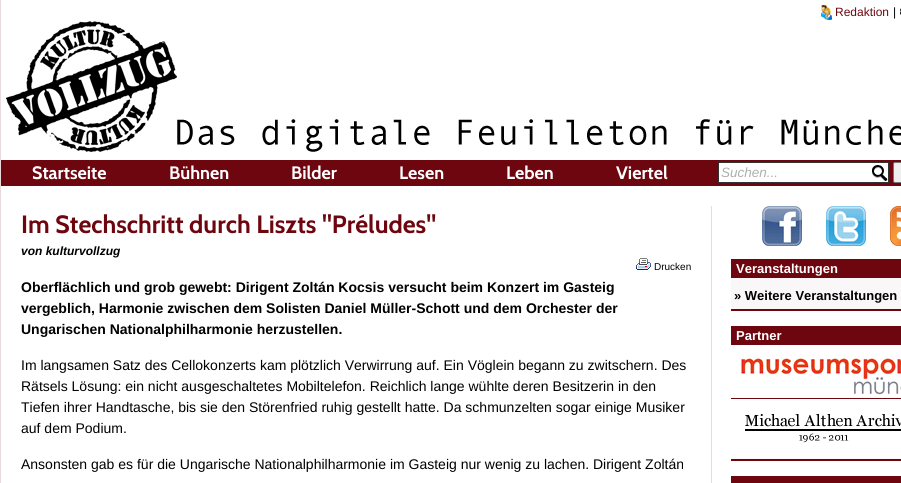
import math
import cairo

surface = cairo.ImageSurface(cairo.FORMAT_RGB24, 901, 483)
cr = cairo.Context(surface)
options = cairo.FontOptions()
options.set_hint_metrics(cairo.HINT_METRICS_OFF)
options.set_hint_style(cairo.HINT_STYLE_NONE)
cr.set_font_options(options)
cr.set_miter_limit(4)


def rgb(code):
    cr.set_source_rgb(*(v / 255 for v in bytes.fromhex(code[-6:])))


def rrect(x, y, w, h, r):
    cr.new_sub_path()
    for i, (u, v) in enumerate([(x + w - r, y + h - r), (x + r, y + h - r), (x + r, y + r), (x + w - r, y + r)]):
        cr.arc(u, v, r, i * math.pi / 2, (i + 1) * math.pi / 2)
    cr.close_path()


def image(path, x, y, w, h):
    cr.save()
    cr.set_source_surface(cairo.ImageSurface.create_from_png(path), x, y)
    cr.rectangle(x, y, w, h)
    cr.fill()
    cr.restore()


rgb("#ffffff")
cr.paint()
rgb("#e9dadb")
cr.rectangle(0, 0, 1, 483)
cr.fill()
image("img/1.png", 821, 5, 11, 15)
image("img/2.png", 900, 8, 1, 7)
image("img/3.png", 6, 21, 171, 131)
image("img/4.png", 177, 119, 724, 33)
rgb("#6e0610")
cr.rectangle(1, 160, 900, 26)
cr.fill()
rgb("#ffffff")
cr.rectangle(719, 163, 169, 19)
cr.fill()
image("img/5.png", 872, 165, 16, 16)
cr.rectangle(718.5, 162.5, 170, 20)
rgb("#333333")
cr.set_line_width(1)
cr.stroke()
rgb("#efefef")
rrect(893.5, 162.5, 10, 20, 1.5)
cr.fill_preserve()
rgb("#767676")
cr.stroke()
rgb("#e9dadb")
cr.rectangle(711, 206, 1, 277)
cr.fill()
image("img/6.png", 636, 258, 15, 12)
image("img/7.png", 762, 206, 40, 40)
image("img/8.png", 826, 206, 40, 40)
image("img/9.png", 890, 206, 11, 40)
for x, y, w, h, color in [
    (731, 259, 170, 19, "#6e0610"),
    (731, 278, 170, 31, "#faf7f8"),
    (731, 309, 170, 2, "#6e0610"),
    (731, 326, 170, 19, "#6e0610"),
    (731, 458, 170, 1, "#faf7f8"),
    (731, 459, 170, 2, "#6e0610"),
]:
    rgb(color)
    cr.rectangle(x, y, w, h)
    cr.fill()
image("img/10.png", 731, 345, 170, 59)
cr.rectangle(731, 398, 170, 1)
cr.fill()
image("img/11.png", 731, 404, 170, 54)
cr.rectangle(731, 476, 170, 7)
cr.fill()
cr.select_font_face("Liberation Sans")
cr.set_font_size(12)
cr.move_to(835, 16)
cr.show_text("Redaktion")
rgb("#000000")
cr.move_to(893, 16)
cr.show_text("|")
cr.select_font_face("Cabin", cairo.FONT_SLANT_NORMAL, cairo.FONT_WEIGHT_BOLD)
cr.set_font_size(18)
rgb("#ffffff")
for x, y, s in [
    (32, 179, "Startseite"),
    (169, 179, "Bühnen"),
    (291, 179, "Bilder"),
    (399, 179, "Lesen"),
    (506, 179, "Leben"),
    (616, 179, "Viertel"),
]:
    cr.move_to(x, y)
    cr.show_text(s)
cr.select_font_face("Liberation Sans", cairo.FONT_SLANT_ITALIC)
cr.set_font_size(13.5)
rgb("#afafaf")
cr.move_to(721, 177)
cr.show_text("Suchen...")
cr.select_font_face("Cabin", cairo.FONT_SLANT_NORMAL, cairo.FONT_WEIGHT_BOLD)
cr.set_font_size(25)
rgb("#6e0610")
cr.move_to(21, 233)
cr.show_text("Im Stechschritt durch Liszts \"Préludes\"")
cr.select_font_face("Liberation Sans", cairo.FONT_SLANT_ITALIC, cairo.FONT_WEIGHT_BOLD)
cr.set_font_size(12)
rgb("#000000")
cr.move_to(21, 255)
cr.show_text("von kulturvollzug")
cr.select_font_face("Liberation Sans")
cr.set_font_size(10)
cr.move_to(654, 270)
cr.show_text("Drucken")
cr.select_font_face("Liberation Sans", cairo.FONT_SLANT_NORMAL, cairo.FONT_WEIGHT_BOLD)
cr.set_font_size(14)
for x, y, s in [
    (21, 292, "Oberflächlich und grob gewebt: Dirigent Zoltán Kocsis versucht beim Konzert im Gasteig"),
    (21, 313, "vergeblich, Harmonie zwischen dem Solisten Daniel Müller-Schott und dem Orchester der"),
    (21, 334, "Ungarischen Nationalphilharmonie herzustellen."),
]:
    cr.move_to(x, y)
    cr.show_text(s)
cr.select_font_face("Liberation Sans")
for x, y, s in [
    (21, 370, "Im langsamen Satz des Cellokonzerts kam plötzlich Verwirrung auf. Ein Vöglein begann zu zwitschern. Des"),
    (21, 391, "Rätsels Lösung: ein nicht ausgeschaltetes Mobiltelefon. Reichlich lange wühlte deren Besitzerin in den"),
    (21, 412, "Tiefen ihrer Handtasche, bis sie den Störenfried ruhig gestellt hatte. Da schmunzelten sogar einige Musiker"),
    (21, 433, "auf dem Podium."),
    (21, 469, "Ansonsten gab es für die Ungarische Nationalphilharmonie im Gasteig nur wenig zu lachen. Dirigent Zoltán"),
]:
    cr.move_to(x, y)
    cr.show_text(s)
cr.select_font_face("Liberation Sans", cairo.FONT_SLANT_NORMAL, cairo.FONT_WEIGHT_BOLD)
cr.set_font_size(13)
rgb("#ffffff")
cr.move_to(736, 273)
cr.show_text("Veranstaltungen")
rgb("#000000")
cr.move_to(734, 300)
cr.show_text("» Weitere Veranstaltungen")
rgb("#ffffff")
cr.move_to(736, 340)
cr.show_text("Partner")
surface.write_to_png("page.png")
